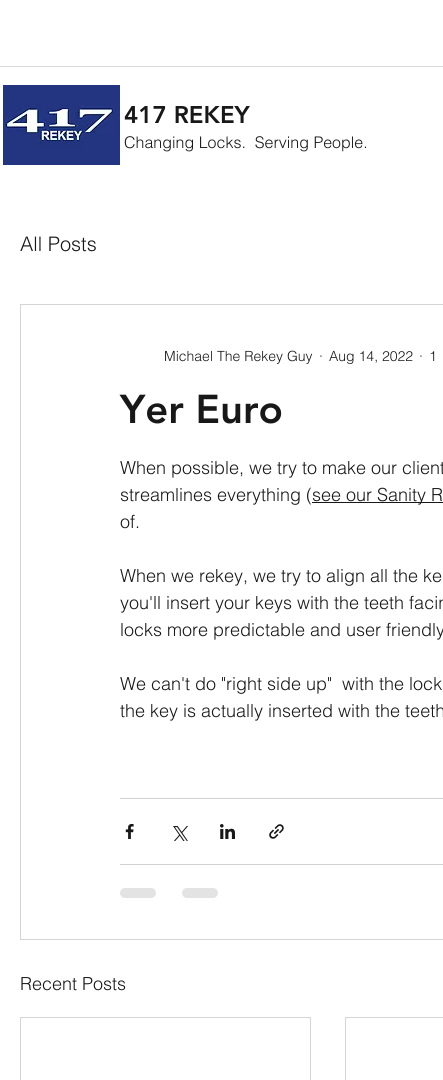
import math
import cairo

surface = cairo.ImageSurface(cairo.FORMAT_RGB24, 443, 1080)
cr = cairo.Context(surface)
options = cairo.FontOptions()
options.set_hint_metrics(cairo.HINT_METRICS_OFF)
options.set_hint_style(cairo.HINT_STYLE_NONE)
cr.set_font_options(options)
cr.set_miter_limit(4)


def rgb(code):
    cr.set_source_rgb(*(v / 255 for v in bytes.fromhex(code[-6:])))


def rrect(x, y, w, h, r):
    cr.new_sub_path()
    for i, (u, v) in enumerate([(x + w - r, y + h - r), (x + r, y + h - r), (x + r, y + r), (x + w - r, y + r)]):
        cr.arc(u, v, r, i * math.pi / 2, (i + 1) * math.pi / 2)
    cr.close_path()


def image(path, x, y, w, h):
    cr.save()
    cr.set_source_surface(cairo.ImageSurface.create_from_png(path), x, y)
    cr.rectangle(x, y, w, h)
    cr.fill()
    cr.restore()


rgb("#ffffff")
cr.paint()
rgb("#dcdcdc")
cr.rectangle(0, 66, 443, 1)
cr.fill()
image("img/1.png", 3, 85, 117, 80)
cr.rectangle(20.5, 304.5, 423, 635)
rgb("#d5d5d4")
cr.set_line_width(1)
cr.stroke()
rgb("#181818")
cr.rectangle(312, 502, 131, 1)
cr.fill()
rgb("#d1d1d1")
cr.rectangle(120, 798, 323, 1)
cr.fill()
image("img/2.png", 125, 824, 9, 15)
image("img/3.png", 173, 826, 15, 15)
image("img/4.png", 220, 824, 15, 15)
image("img/5.png", 269, 824, 15, 15)
cr.rectangle(120, 864, 323, 1)
cr.fill()
rgb("#e3e3e3")
rrect(120, 888, 36, 10, 5)
cr.fill()
rrect(182, 888, 36, 10, 5)
cr.fill()
cr.rectangle(20.5, 1017.5, 290, 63)
rgb("#d5d5d4")
cr.stroke()
cr.rectangle(345.5, 1017.5, 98, 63)
cr.stroke()
cr.select_font_face("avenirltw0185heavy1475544 Black")
cr.set_font_size(24)
rgb("#181818")
cr.move_to(124, 123)
cr.show_text("417 REKEY")
cr.select_font_face("helvetica Light")
cr.set_font_size(16)
cr.move_to(124, 148)
cr.show_text("Changing Locks.  Serving People.")
cr.set_font_size(20)
cr.move_to(20, 251)
cr.show_text("All Posts")
cr.set_font_size(14)
for x, y, s in [
    (164, 361, "Michael The Rekey Guy"),
    (319, 361, "·"),
    (329, 361, "Aug 14, 2022"),
    (419, 361, "·"),
    (429, 361, "1"),
]:
    cr.move_to(x, y)
    cr.show_text(s)
cr.select_font_face("avenirltw0185heavy1475544 Black")
cr.set_font_size(40)
cr.move_to(120, 423)
cr.show_text("Yer Euro")
cr.select_font_face("helvetica Light")
cr.set_font_size(18)
for x, y, s in [
    (120, 474, "When possible, we try to make our client"),
    (120, 501, "streamlines everything ("),
    (312, 501, "see our Sanity R"),
    (120, 528, "of."),
    (120, 582, "When we rekey, we try to align all the ke"),
    (120, 609, "you'll insert your keys with the teeth facin"),
    (120, 636, "locks more predictable and user friendly"),
    (120, 690, "We can't do \"right side up\"  with the lock"),
    (120, 717, "the key is actually inserted with the teeth"),
    (20, 990, "Recent Posts"),
]:
    cr.move_to(x, y)
    cr.show_text(s)
surface.write_to_png("page.png")
